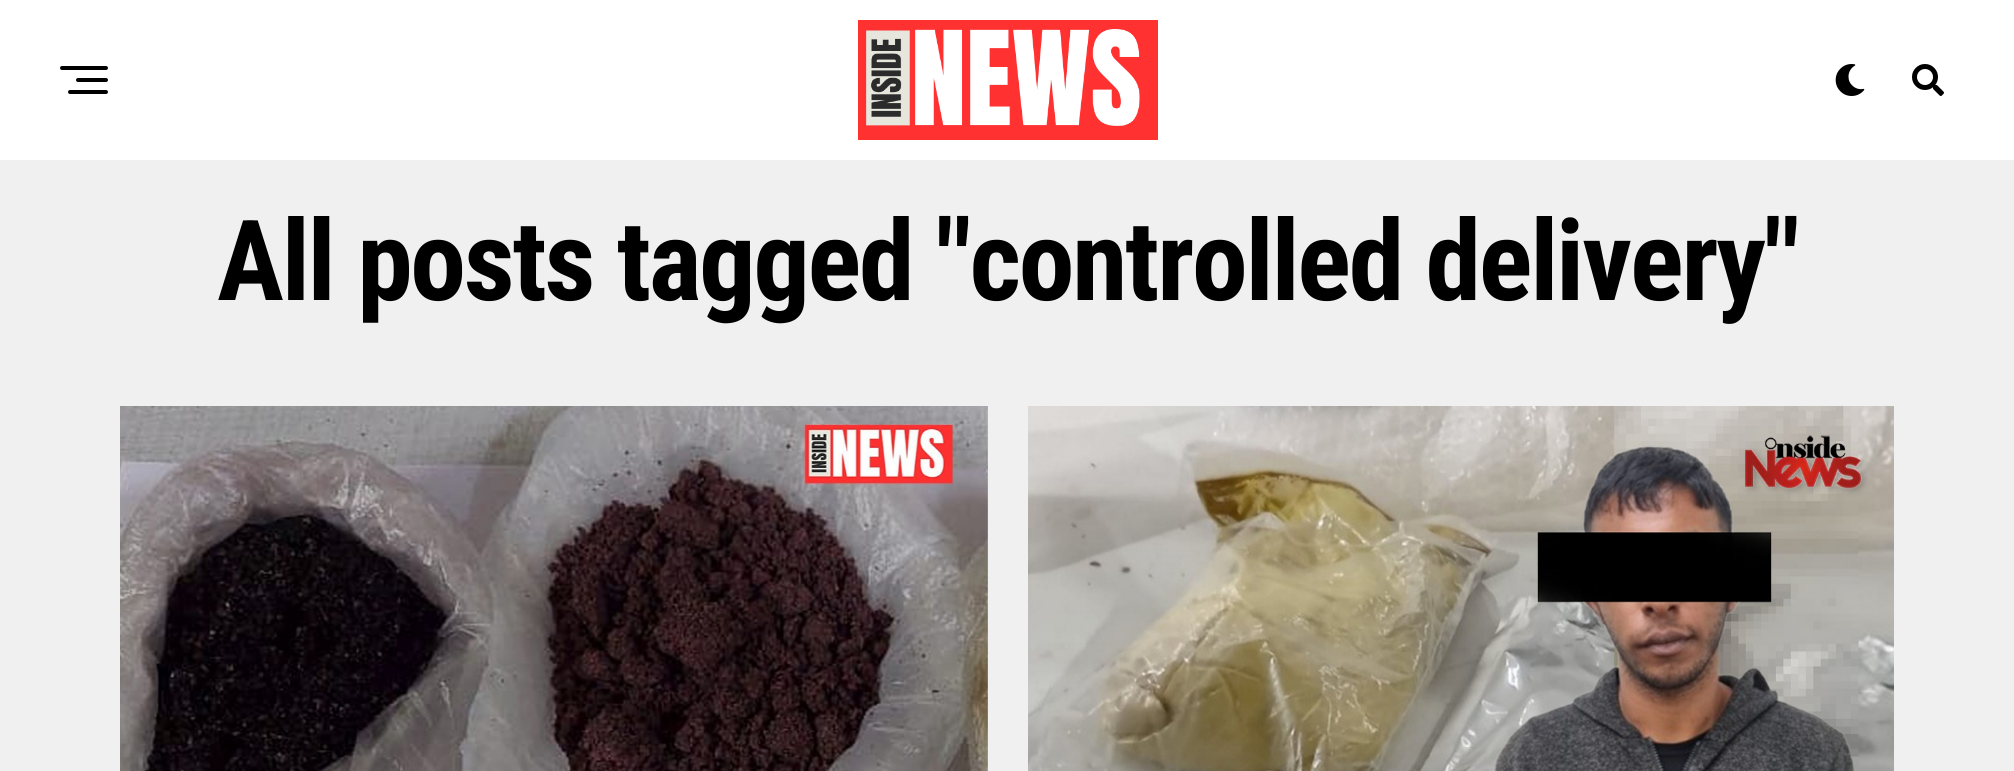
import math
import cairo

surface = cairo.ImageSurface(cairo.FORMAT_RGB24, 2014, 771)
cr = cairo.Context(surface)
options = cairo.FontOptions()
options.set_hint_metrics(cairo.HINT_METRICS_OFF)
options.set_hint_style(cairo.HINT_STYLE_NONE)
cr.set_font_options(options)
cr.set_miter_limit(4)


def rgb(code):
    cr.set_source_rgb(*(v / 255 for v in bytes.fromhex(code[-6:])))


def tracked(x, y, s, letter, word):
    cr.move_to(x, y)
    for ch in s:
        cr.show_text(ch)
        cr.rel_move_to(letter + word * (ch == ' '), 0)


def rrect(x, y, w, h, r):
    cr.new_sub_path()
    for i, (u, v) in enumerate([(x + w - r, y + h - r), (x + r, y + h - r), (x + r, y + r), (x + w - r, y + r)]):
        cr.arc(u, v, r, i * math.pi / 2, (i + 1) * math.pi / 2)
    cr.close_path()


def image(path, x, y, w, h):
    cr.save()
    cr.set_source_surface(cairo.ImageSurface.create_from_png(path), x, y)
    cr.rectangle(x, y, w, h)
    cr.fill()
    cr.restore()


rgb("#f0f0f0")
cr.paint()
rgb("#ffffff")
cr.rectangle(0, 0, 2014, 160)
cr.fill()
rgb("#000000")
rrect(60, 66, 48, 4, 2)
cr.fill()
rrect(76, 78, 32, 4, 2)
cr.fill()
rrect(68, 90, 40, 4, 2)
cr.fill()
image("img/1.png", 858, 20, 300, 120)
image("img/2.png", 1835, 64, 30, 32)
image("img/3.png", 1912, 64, 32, 32)
image("img/4.png", 120, 406, 868, 365)
image("img/5.png", 1028, 406, 866, 365)
cr.select_font_face("Roboto Condensed", cairo.FONT_SLANT_NORMAL, cairo.FONT_WEIGHT_BOLD)
cr.set_font_size(112)
tracked(217, 300, "All posts tagged \"controlled delivery\"", -2.25, 0)
surface.write_to_png("page.png")
